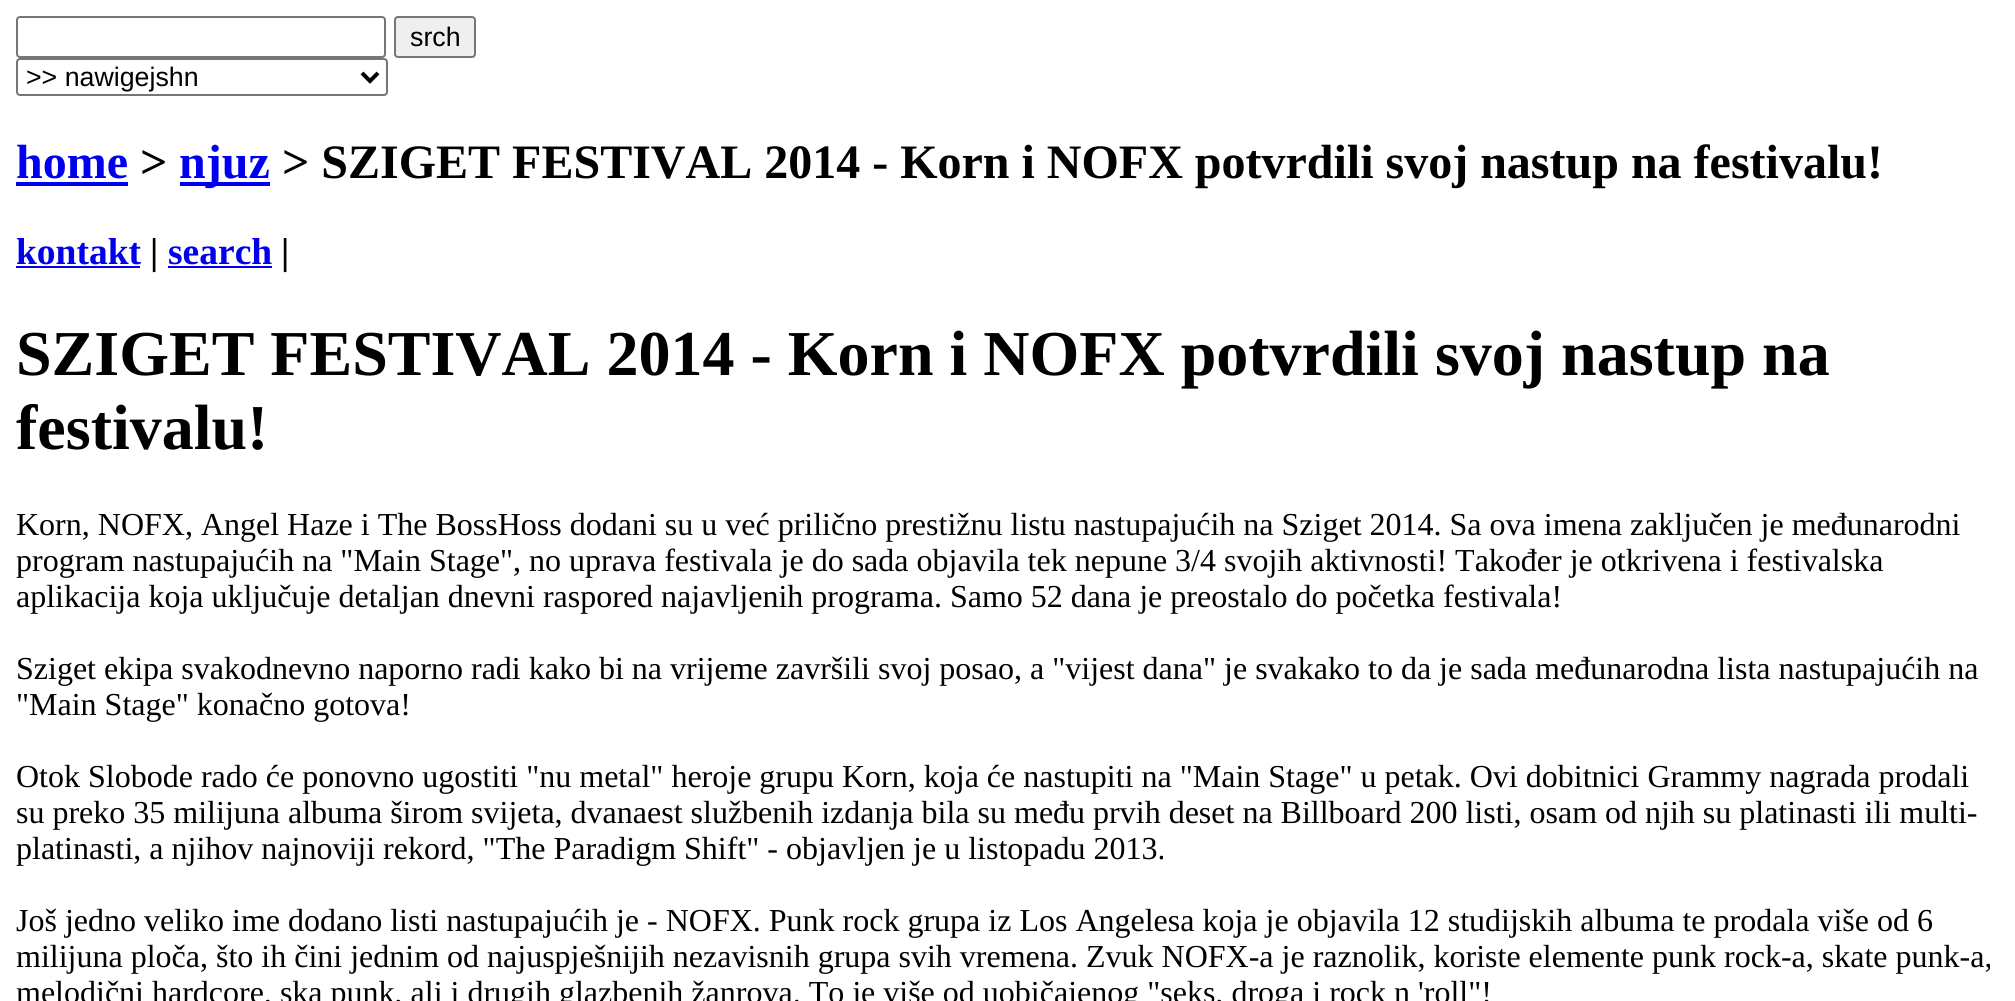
import math
import cairo

surface = cairo.ImageSurface(cairo.FORMAT_RGB24, 2015, 1001)
cr = cairo.Context(surface)
options = cairo.FontOptions()
options.set_hint_metrics(cairo.HINT_METRICS_OFF)
options.set_hint_style(cairo.HINT_STYLE_NONE)
cr.set_font_options(options)
cr.set_miter_limit(4)


def rgb(code):
    cr.set_source_rgb(*(v / 255 for v in bytes.fromhex(code[-6:])))


def rrect(x, y, w, h, r):
    cr.new_sub_path()
    for i, (u, v) in enumerate([(x + w - r, y + h - r), (x + r, y + h - r), (x + r, y + r), (x + w - r, y + r)]):
        cr.arc(u, v, r, i * math.pi / 2, (i + 1) * math.pi / 2)
    cr.close_path()


rgb("#ffffff")
cr.paint()
rrect(17, 17, 368, 40, 3)
rgb("#767676")
cr.stroke()
rgb("#efefef")
rrect(395, 17, 80, 40, 3)
cr.fill_preserve()
rgb("#767676")
cr.stroke()
rrect(17, 59, 370, 36, 3)
cr.stroke()
cr.new_path()
cr.move_to(362, 73)
cr.line_to(370, 81)
cr.line_to(378, 73)
rgb("#000000")
cr.set_line_width(4)
cr.stroke()
for x, y, w, h, color in [
    (16, 182, 112, 4, "#0000ee"),
    (180, 182, 90, 4, "#0000ee"),
    (16, 266, 124, 2, "#0000ee"),
    (168, 266, 104, 2, "#0000ee"),
]:
    rgb(color)
    cr.rectangle(x, y, w, h)
    cr.fill()
cr.select_font_face("Liberation Sans")
cr.set_font_size(26.75)
rgb("#000000")
cr.move_to(410, 46)
cr.show_text("srch")
cr.move_to(26, 86)
cr.show_text(">> nawigejshn")
cr.select_font_face("Liberation Serif", cairo.FONT_SLANT_NORMAL, cairo.FONT_WEIGHT_BOLD)
cr.set_font_size(48)
rgb("#0000ee")
cr.move_to(16, 178)
cr.show_text("home")
rgb("#000000")
cr.move_to(140, 178)
cr.show_text(">")
rgb("#0000ee")
cr.move_to(179, 178)
cr.show_text("njuz")
rgb("#000000")
cr.move_to(282, 178)
cr.show_text("> SZIGET FESTIVAL 2014 - Korn i NOFX potvrdili svoj nastup na festivalu!")
cr.set_font_size(37.5)
rgb("#0000ee")
cr.move_to(16, 264)
cr.show_text("kontakt")
rgb("#000000")
cr.move_to(150, 264)
cr.show_text("|")
rgb("#0000ee")
cr.move_to(168, 264)
cr.show_text("search")
rgb("#000000")
cr.move_to(281, 264)
cr.show_text("|")
cr.set_font_size(64)
cr.move_to(16, 375)
cr.show_text("SZIGET FESTIVAL 2014 - Korn i NOFX potvrdili svoj nastup na")
cr.move_to(16, 449)
cr.show_text("festivalu!")
cr.select_font_face("Liberation Serif")
cr.set_font_size(32)
for x, y, s in [
    (16, 535, "Korn, NOFX, Angel Haze i The BossHoss dodani su u već prilično prestižnu listu nastupajućih na Sziget 2014. Sa ova imena zaključen je međunarodni"),
    (16, 571, "program nastupajućih na \"Main Stage\", no uprava festivala je do sada objavila tek nepune 3/4 svojih aktivnosti! Također je otkrivena i festivalska"),
    (16, 607, "aplikacija koja uključuje detaljan dnevni raspored najavljenih programa. Samo 52 dana je preostalo do početka festivala!"),
    (16, 679, "Sziget ekipa svakodnevno naporno radi kako bi na vrijeme završili svoj posao, a \"vijest dana\" je svakako to da je sada međunarodna lista nastupajućih na"),
    (16, 715, "\"Main Stage\" konačno gotova!"),
    (16, 787, "Otok Slobode rado će ponovno ugostiti \"nu metal\" heroje grupu Korn, koja će nastupiti na \"Main Stage\" u petak. Ovi dobitnici Grammy nagrada prodali"),
    (16, 823, "su preko 35 milijuna albuma širom svijeta, dvanaest službenih izdanja bila su među prvih deset na Billboard 200 listi, osam od njih su platinasti ili multi-"),
    (16, 859, "platinasti, a njihov najnoviji rekord, \"The Paradigm Shift\" - objavljen je u listopadu 2013."),
    (16, 931, "Još jedno veliko ime dodano listi nastupajućih je - NOFX. Punk rock grupa iz Los Angelesa koja je objavila 12 studijskih albuma te prodala više od 6"),
    (16, 967, "milijuna ploča, što ih čini jednim od najuspješnijih nezavisnih grupa svih vremena. Zvuk NOFX-a je raznolik, koriste elemente punk rock-a, skate punk-a,"),
    (16, 1003, "melodični hardcore, ska punk, ali i drugih glazbenih žanrova. To je više od uobičajenog \"seks, droga i rock n 'roll\"!"),
]:
    cr.move_to(x, y)
    cr.show_text(s)
surface.write_to_png("page.png")
